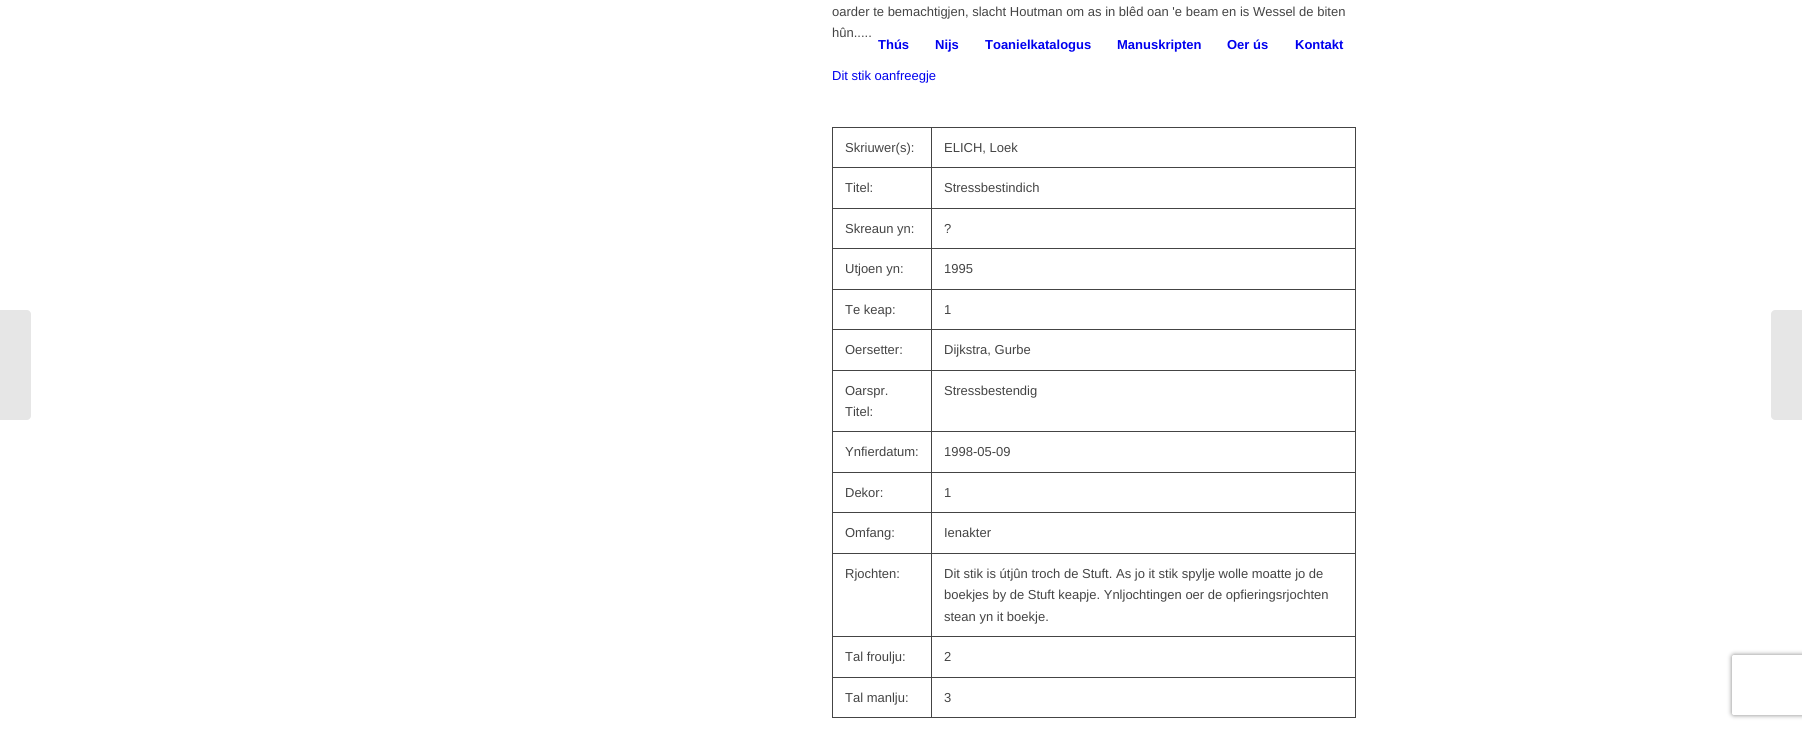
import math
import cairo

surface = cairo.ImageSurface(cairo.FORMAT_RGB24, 1802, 729)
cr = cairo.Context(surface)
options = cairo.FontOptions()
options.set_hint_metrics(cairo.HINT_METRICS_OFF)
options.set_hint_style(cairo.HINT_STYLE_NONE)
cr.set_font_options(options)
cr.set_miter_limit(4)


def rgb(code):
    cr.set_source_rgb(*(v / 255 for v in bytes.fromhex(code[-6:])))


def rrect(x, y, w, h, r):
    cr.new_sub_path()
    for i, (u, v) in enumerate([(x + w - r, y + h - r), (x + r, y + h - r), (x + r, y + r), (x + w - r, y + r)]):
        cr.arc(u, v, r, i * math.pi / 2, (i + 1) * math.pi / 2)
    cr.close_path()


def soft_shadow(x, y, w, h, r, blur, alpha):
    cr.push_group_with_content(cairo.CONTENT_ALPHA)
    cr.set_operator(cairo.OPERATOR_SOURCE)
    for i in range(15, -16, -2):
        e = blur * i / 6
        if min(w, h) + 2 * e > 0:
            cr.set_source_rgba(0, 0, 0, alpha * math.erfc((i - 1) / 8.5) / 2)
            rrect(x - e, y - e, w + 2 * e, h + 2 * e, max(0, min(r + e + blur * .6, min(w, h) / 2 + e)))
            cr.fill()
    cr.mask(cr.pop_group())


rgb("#ffffff")
cr.paint()
for x, y, w, h, color in [
    (832, 127, 524, 1, "#444444"),
    (1355, 167, 1, 551, "#444444"),
    (1355, 127, 1, 41, "#444444"),
    (931, 717, 425, 1, "#444444"),
    (931, 677, 1, 41, "#444444"),
    (931, 677, 425, 1, "#444444"),
    (931, 636, 1, 42, "#444444"),
    (931, 636, 425, 1, "#444444"),
    (931, 553, 1, 84, "#444444"),
    (931, 553, 425, 1, "#444444"),
    (931, 512, 1, 42, "#444444"),
    (931, 512, 425, 1, "#444444"),
    (931, 472, 1, 41, "#444444"),
    (931, 472, 425, 1, "#444444"),
    (931, 431, 1, 42, "#444444"),
    (931, 431, 425, 1, "#444444"),
    (931, 370, 1, 62, "#444444"),
    (931, 370, 425, 1, "#444444"),
    (931, 329, 1, 42, "#444444"),
    (931, 329, 425, 1, "#444444"),
    (931, 289, 1, 41, "#444444"),
    (931, 289, 425, 1, "#444444"),
    (931, 248, 1, 42, "#444444"),
    (931, 248, 425, 1, "#444444"),
    (931, 208, 1, 41, "#444444"),
    (931, 208, 425, 1, "#444444"),
    (931, 167, 1, 42, "#444444"),
    (931, 167, 425, 1, "#444444"),
    (931, 127, 1, 41, "#444444"),
    (832, 717, 100, 1, "#444444"),
    (832, 677, 1, 41, "#444444"),
    (832, 677, 100, 1, "#444444"),
    (832, 636, 1, 42, "#444444"),
    (832, 636, 100, 1, "#444444"),
    (832, 553, 1, 84, "#444444"),
    (832, 553, 100, 1, "#444444"),
    (832, 512, 1, 42, "#444444"),
    (832, 512, 100, 1, "#444444"),
    (832, 472, 1, 41, "#444444"),
    (832, 472, 100, 1, "#444444"),
    (832, 431, 1, 42, "#444444"),
    (832, 431, 100, 1, "#444444"),
    (832, 370, 1, 62, "#444444"),
    (832, 370, 100, 1, "#444444"),
    (832, 329, 1, 42, "#444444"),
    (832, 329, 100, 1, "#444444"),
    (832, 289, 1, 41, "#444444"),
    (832, 289, 100, 1, "#444444"),
    (832, 248, 1, 42, "#444444"),
    (832, 248, 100, 1, "#444444"),
    (832, 208, 1, 41, "#444444"),
    (832, 208, 100, 1, "#444444"),
    (832, 167, 1, 42, "#444444"),
    (832, 167, 100, 1, "#444444"),
    (832, 127, 1, 41, "#444444"),
]:
    rgb(color)
    cr.rectangle(x, y, w, h)
    cr.fill()
rgb("#e6e6e6")
cr.new_path()
cr.move_to(0, 310)
cr.line_to(27, 310)
cr.curve_to(29, 310, 31, 312, 31, 314)
cr.line_to(31, 416)
cr.curve_to(31, 418, 29, 420, 27, 420)
cr.line_to(0, 420)
cr.close_path()
cr.fill()
cr.new_path()
cr.move_to(1775, 310)
cr.line_to(1802, 310)
cr.line_to(1802, 420)
cr.line_to(1775, 420)
cr.curve_to(1773, 420, 1771, 418, 1771, 416)
cr.line_to(1771, 314)
cr.curve_to(1771, 312, 1773, 310, 1775, 310)
cr.close_path()
cr.fill()
cr.save()
cr.set_fill_rule(cairo.FILL_RULE_EVEN_ODD)
cr.new_path()
cr.move_to(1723, 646)
cr.line_to(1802, 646)
cr.line_to(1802, 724)
cr.line_to(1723, 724)
cr.close_path()
cr.move_to(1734, 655)
cr.line_to(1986, 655)
cr.curve_to(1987, 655, 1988, 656, 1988, 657)
cr.line_to(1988, 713)
cr.curve_to(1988, 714, 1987, 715, 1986, 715)
cr.line_to(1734, 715)
cr.curve_to(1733, 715, 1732, 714, 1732, 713)
cr.line_to(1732, 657)
cr.curve_to(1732, 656, 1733, 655, 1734, 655)
cr.close_path()
cr.clip()
rgb("#808080")
soft_shadow(1732, 655, 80, 60, 2, 2.5, 1)
cr.restore()
cr.select_font_face("Liberation Sans")
cr.set_font_size(13)
rgb("#444444")
cr.move_to(832, 16)
cr.show_text("oarder te bemachtigjen, slacht Houtman om as in blêd oan 'e beam en is Wessel de biten")
cr.move_to(832, 37)
cr.show_text("hûn.....")
rgb("#0000ee")
cr.move_to(832, 80)
cr.show_text("Dit stik oanfreegje")
rgb("#444444")
for x, y, s in [
    (845, 152, "Skriuwer(s):"),
    (944, 152, "ELICH, Loek"),
    (845, 192, "Titel:"),
    (944, 192, "Stressbestindich"),
    (845, 233, "Skreaun yn:"),
    (944, 233, "?"),
    (845, 273, "Utjoen yn:"),
    (944, 273, "1995"),
    (845, 314, "Te keap:"),
    (944, 314, "1"),
    (845, 354, "Oersetter:"),
    (944, 354, "Dijkstra, Gurbe"),
    (845, 395, "Oarspr."),
    (845, 416, "Titel:"),
    (944, 395, "Stressbestendig"),
    (845, 456, "Ynfierdatum:"),
    (944, 456, "1998-05-09"),
    (845, 497, "Dekor:"),
    (944, 497, "1"),
    (845, 537, "Omfang:"),
    (944, 537, "Ienakter"),
    (845, 578, "Rjochten:"),
    (944, 578, "Dit stik is útjûn troch de Stuft. As jo it stik spylje wolle moatte jo de"),
    (944, 599, "boekjes by de Stuft keapje. Ynljochtingen oer de opfieringsrjochten"),
    (944, 621, "stean yn it boekje."),
    (845, 661, "Tal froulju:"),
    (944, 661, "2"),
    (845, 702, "Tal manlju:"),
    (944, 702, "3"),
]:
    cr.move_to(x, y)
    cr.show_text(s)
cr.select_font_face("Liberation Sans", cairo.FONT_SLANT_NORMAL, cairo.FONT_WEIGHT_BOLD)
rgb("#0000ee")
for x, y, s in [
    (878, 49, "Thús"),
    (935, 49, "Nijs"),
    (985, 49, "Toanielkatalogus"),
    (1117, 49, "Manuskripten"),
    (1227, 49, "Oer ús"),
    (1295, 49, "Kontakt"),
]:
    cr.move_to(x, y)
    cr.show_text(s)
surface.write_to_png("page.png")
